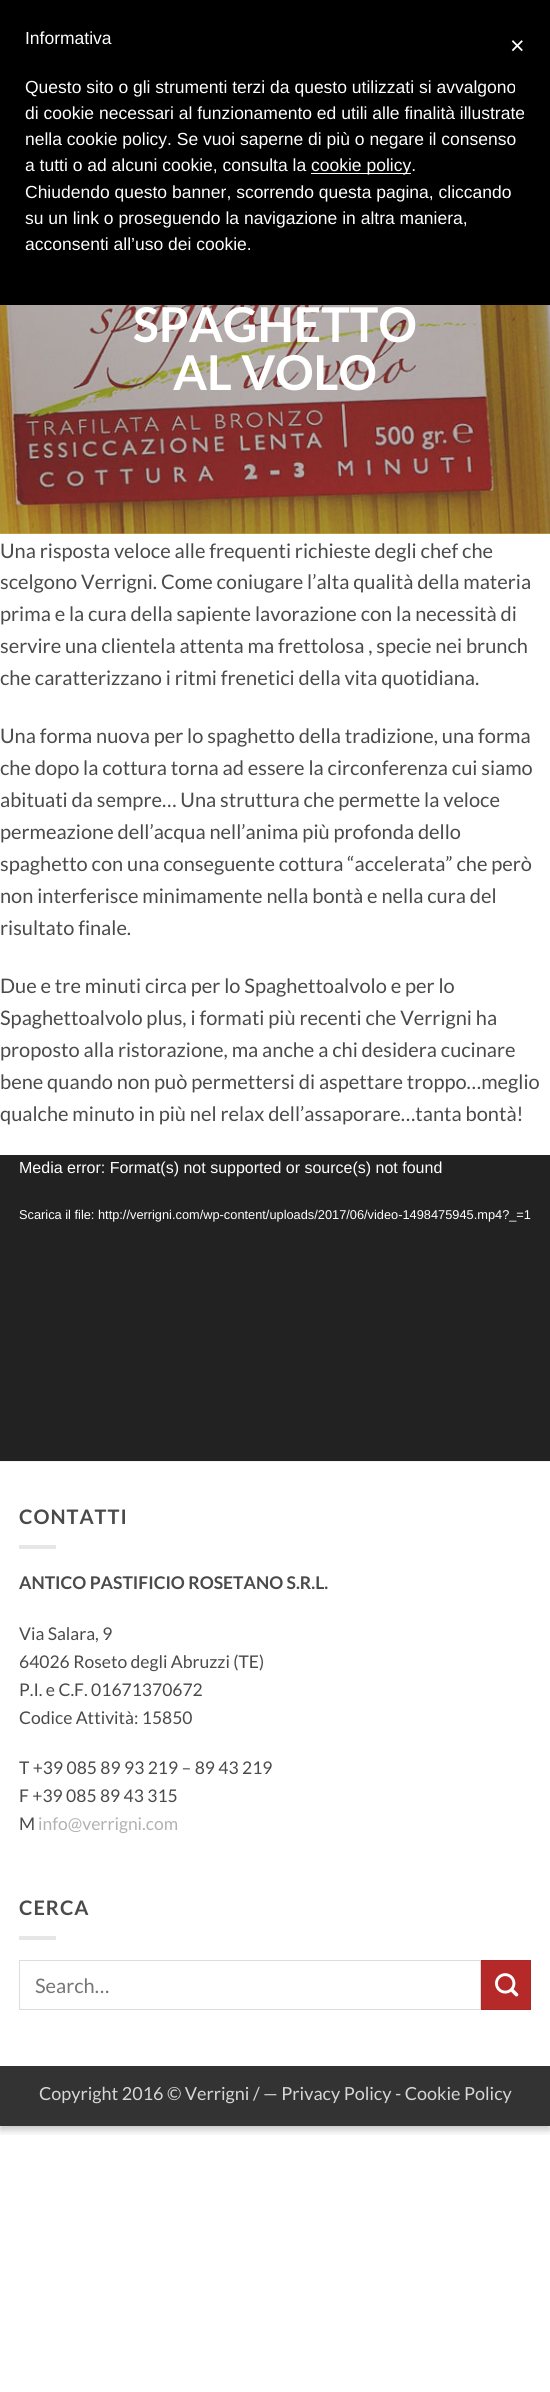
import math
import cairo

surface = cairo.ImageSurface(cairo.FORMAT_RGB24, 550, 2392)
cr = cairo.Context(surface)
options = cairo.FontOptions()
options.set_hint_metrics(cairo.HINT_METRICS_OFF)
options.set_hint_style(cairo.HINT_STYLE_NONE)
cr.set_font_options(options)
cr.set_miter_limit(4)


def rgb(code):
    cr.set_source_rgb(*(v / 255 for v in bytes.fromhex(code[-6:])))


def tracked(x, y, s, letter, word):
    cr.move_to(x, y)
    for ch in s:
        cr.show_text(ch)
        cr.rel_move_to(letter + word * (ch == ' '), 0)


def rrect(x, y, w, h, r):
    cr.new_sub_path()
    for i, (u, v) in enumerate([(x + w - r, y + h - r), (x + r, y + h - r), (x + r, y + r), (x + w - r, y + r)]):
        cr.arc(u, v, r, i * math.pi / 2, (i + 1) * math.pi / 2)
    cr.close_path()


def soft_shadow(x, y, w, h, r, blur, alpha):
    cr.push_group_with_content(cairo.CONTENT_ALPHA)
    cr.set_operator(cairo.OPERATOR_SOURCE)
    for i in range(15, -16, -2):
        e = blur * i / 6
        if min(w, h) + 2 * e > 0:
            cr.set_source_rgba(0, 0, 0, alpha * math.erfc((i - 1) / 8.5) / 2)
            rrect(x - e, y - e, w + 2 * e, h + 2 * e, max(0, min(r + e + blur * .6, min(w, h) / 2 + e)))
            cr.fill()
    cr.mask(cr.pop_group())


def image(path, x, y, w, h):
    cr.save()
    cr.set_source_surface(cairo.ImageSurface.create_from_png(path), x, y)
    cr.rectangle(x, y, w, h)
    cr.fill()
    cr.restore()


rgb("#ffffff")
cr.paint()
cr.save()
cr.rectangle(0, 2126, 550, 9)
cr.clip()
rgb("#000000")
soft_shadow(0, 4, 550, 2126, 0, 4, 0.23)
cr.restore()
for x, y, w, h, color in [
    (0, 0, 550, 305, "#000000"),
    (311, 173, 100, 1, "#ffffff"),
    (0, 533, 550, 1, "#d3b758"),
]:
    rgb(color)
    cr.rectangle(x, y, w, h)
    cr.fill()
image("img/1.png", 0, 305, 550, 229)
for x, y, w, h, color in [
    (0, 1155, 550, 306, "#222222"),
    (0, 1461, 550, 1, "#f2f2f2"),
    (19, 1545, 37, 4, "#e6e6e6"),
    (19, 1936, 37, 4, "#e6e6e6"),
]:
    rgb(color)
    cr.rectangle(x, y, w, h)
    cr.fill()
cr.rectangle(19.5, 1960.5, 461, 49)
rgb("#dddddd")
cr.set_line_width(1)
cr.stroke()
rgb("#b52929")
cr.rectangle(481.5, 1960.5, 49, 49)
cr.fill_preserve()
rgb("#ac2727")
cr.stroke()
image("img/2.png", 495, 1973, 24, 24)
rgb("#333333")
cr.rectangle(0, 2066, 550, 60)
cr.fill()
cr.select_font_face("Liberation Sans")
cr.set_font_size(17.5)
rgb("#ffffff")
for x, y, s in [
    (25, 44, "Informativa"),
    (25, 93, "Questo sito o gli strumenti terzi da questo utilizzati si avvalgono"),
    (25, 119, "di cookie necessari al funzionamento ed utili alle finalità illustrate"),
    (25, 145, "nella cookie policy. Se vuoi saperne di più o negare il consenso"),
    (25, 171, "a tutti o ad alcuni cookie, consulta la"),
    (311, 171, "cookie policy."),
    (25, 198, "Chiudendo questo banner, scorrendo questa pagina, cliccando"),
    (25, 224, "su un link o proseguendo la navigazione in altra maniera,"),
    (25, 250, "acconsenti all’uso dei cookie."),
]:
    cr.move_to(x, y)
    cr.show_text(s)
cr.set_font_size(25)
cr.move_to(510, 54)
cr.show_text("×")
cr.select_font_face("Lato", cairo.FONT_SLANT_NORMAL, cairo.FONT_WEIGHT_BOLD)
cr.set_font_size(48)
cr.move_to(133, 342)
cr.show_text("SPAGHETTO")
cr.move_to(173, 390)
cr.show_text("AL VOLO")
cr.select_font_face("Lato")
cr.set_font_size(20)
rgb("#4a4a4a")
for x, y, s in [
    (0, 558, "Una risposta veloce alle frequenti richieste degli chef che"),
    (0, 589, "scelgono Verrigni. Come coniugare l’alta qualità della materia"),
    (0, 621, "prima e la cura della sapiente lavorazione con la necessità di"),
    (0, 653, "servire una clientela attenta ma frettolosa , specie nei brunch"),
    (0, 685, "che caratterizzano i ritmi frenetici della vita quotidiana."),
    (0, 743, "Una forma nuova per lo spaghetto della tradizione, una forma"),
    (0, 775, "che dopo la cottura torna ad essere la circonferenza cui siamo"),
    (0, 807, "abituati da sempre… Una struttura che permette la veloce"),
    (0, 839, "permeazione dell’acqua nell’anima più profonda dello"),
    (0, 871, "spaghetto con una conseguente cottura “accelerata” che però"),
    (0, 903, "non interferisce minimamente nella bontà e nella cura del"),
    (0, 935, "risultato finale."),
    (0, 993, "Due e tre minuti circa per lo Spaghettoalvolo e per lo"),
    (0, 1025, "Spaghettoalvolo plus, i formati più recenti che Verrigni ha"),
    (0, 1057, "proposto alla ristorazione, ma anche a chi desidera cucinare"),
    (0, 1089, "bene quando non può permettersi di aspettare troppo…meglio"),
    (0, 1121, "qualche minuto in più nel relax dell’assaporare…tanta bontà!"),
]:
    cr.move_to(x, y)
    cr.show_text(s)
cr.select_font_face("Liberation Sans")
cr.set_font_size(16)
rgb("#ffffff")
cr.move_to(19, 1173)
cr.show_text("Media error: Format(s) not supported or source(s) not found")
cr.set_font_size(12.8)
cr.move_to(19, 1219)
cr.show_text("Scarica il file: http://verrigni.com/wp-content/uploads/2017/06/video-1498475945.mp4?_=1")
cr.select_font_face("Lato", cairo.FONT_SLANT_NORMAL, cairo.FONT_WEIGHT_BOLD)
cr.set_font_size(20)
rgb("#4a4a4a")
tracked(19, 1524, "CONTATTI", 1, 0)
cr.set_font_size(17.5)
cr.move_to(19, 1589)
cr.show_text("ANTICO PASTIFICIO ROSETANO S.R.L.")
cr.select_font_face("Lato")
for x, y, s in [
    (19, 1640, "Via Salara, 9"),
    (19, 1668, "64026 Roseto degli Abruzzi (TE)"),
    (19, 1696, "P.I. e C.F. 01671370672"),
    (19, 1724, "Codice Attività: 15850"),
    (19, 1774, "T +39 085 89 93 219 – 89 43 219"),
    (19, 1802, "F +39 085 89 43 315"),
    (19, 1830, "M"),
]:
    cr.move_to(x, y)
    cr.show_text(s)
rgb("#b2b2b2")
cr.move_to(38, 1830)
cr.show_text("info@verrigni.com")
cr.select_font_face("Lato", cairo.FONT_SLANT_NORMAL, cairo.FONT_WEIGHT_BOLD)
cr.set_font_size(20)
rgb("#4a4a4a")
tracked(19, 1915, "CERCA", 1, 0)
cr.select_font_face("Lato")
rgb("#757575")
cr.move_to(35, 1993)
cr.show_text("Search…")
cr.set_font_size(18)
rgb("#d6d6d6")
cr.move_to(39, 2100)
cr.show_text("Copyright 2016 © Verrigni / — Privacy Policy - Cookie Policy")
surface.write_to_png("page.png")
